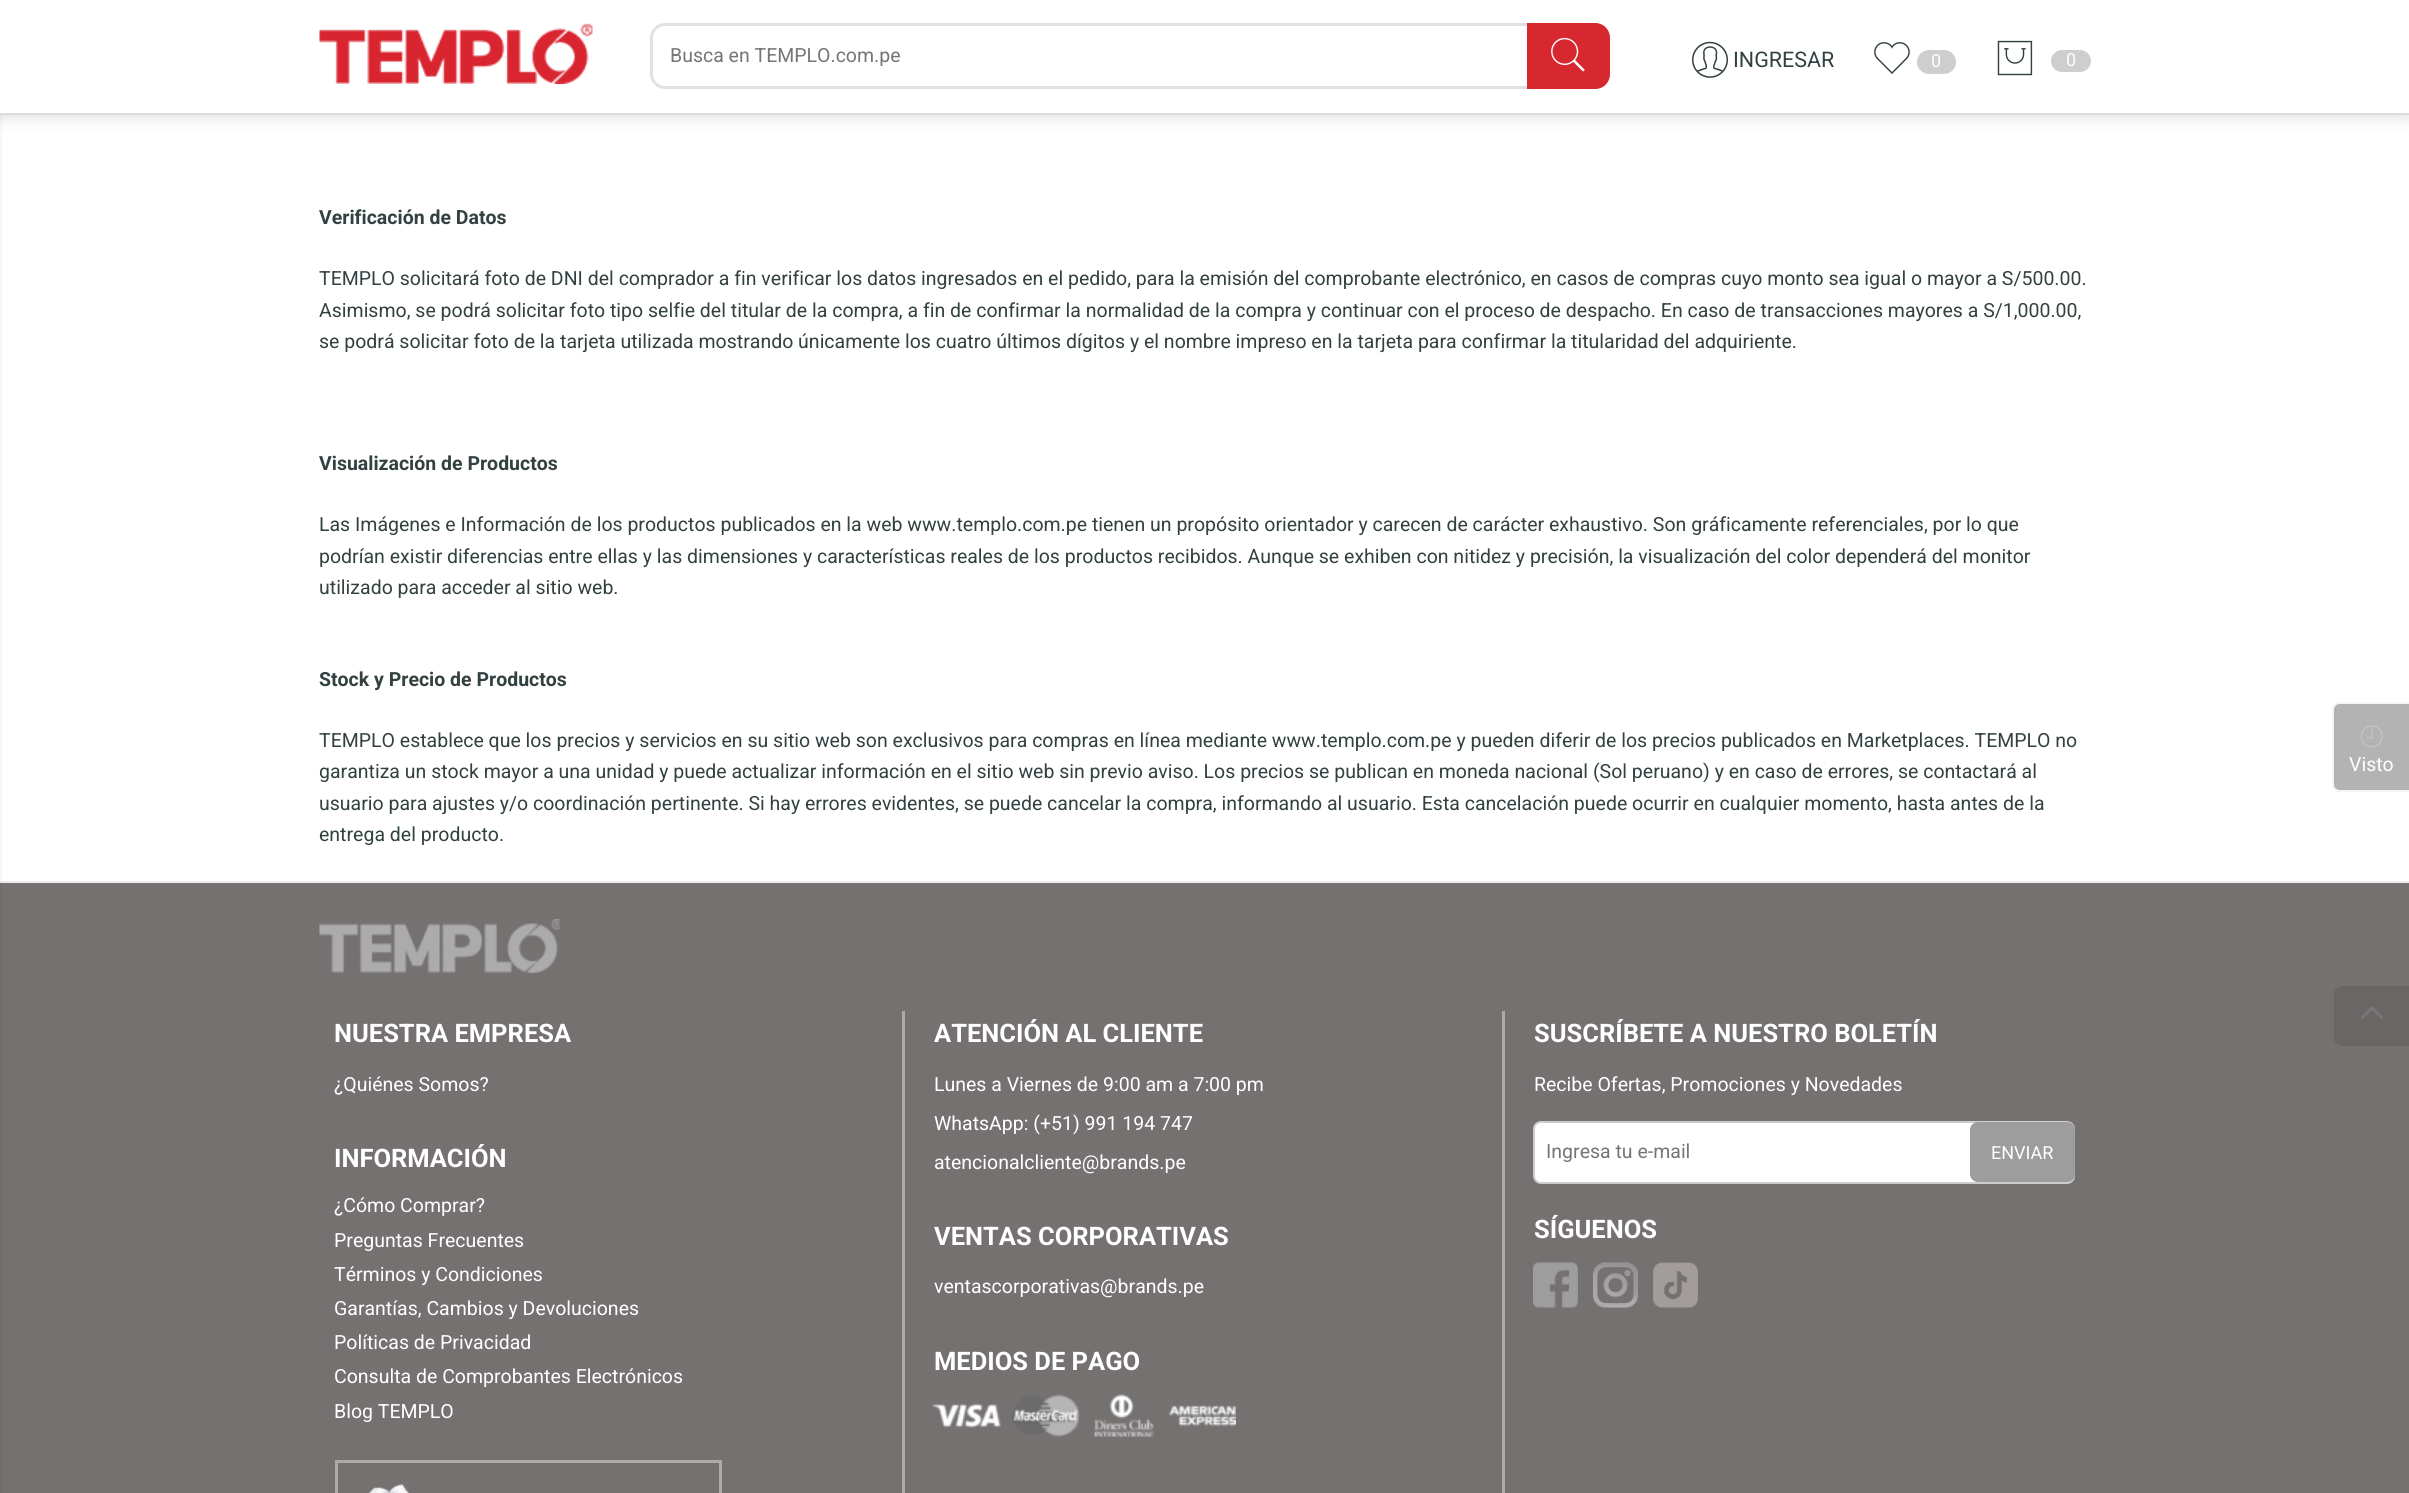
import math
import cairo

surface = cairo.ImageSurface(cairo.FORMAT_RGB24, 2409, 1493)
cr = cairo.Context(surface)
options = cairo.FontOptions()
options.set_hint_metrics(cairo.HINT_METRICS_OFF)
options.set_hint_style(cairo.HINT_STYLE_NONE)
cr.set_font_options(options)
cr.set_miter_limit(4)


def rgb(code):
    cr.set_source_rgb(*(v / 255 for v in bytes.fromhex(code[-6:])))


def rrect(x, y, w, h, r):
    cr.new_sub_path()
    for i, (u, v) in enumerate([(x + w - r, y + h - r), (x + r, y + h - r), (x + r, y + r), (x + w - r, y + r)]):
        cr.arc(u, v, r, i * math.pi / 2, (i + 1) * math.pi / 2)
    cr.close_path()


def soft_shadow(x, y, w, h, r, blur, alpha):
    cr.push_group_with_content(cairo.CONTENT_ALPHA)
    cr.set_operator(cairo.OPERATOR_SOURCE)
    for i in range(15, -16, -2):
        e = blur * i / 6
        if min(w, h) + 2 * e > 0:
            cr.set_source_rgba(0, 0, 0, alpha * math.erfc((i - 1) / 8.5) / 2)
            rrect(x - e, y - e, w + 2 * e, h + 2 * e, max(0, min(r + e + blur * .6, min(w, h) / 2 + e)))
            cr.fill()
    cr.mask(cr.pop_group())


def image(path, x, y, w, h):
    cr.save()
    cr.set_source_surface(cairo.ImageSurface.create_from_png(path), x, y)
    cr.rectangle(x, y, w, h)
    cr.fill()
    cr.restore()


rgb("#ffffff")
cr.paint()
rgb("#000000")
soft_shadow(0, 2, 2409, 114, 0, 9, 0.15)
rgb("#757171")
cr.rectangle(0, 883, 2409, 610)
cr.fill()
rgb("#ececec")
cr.rectangle(0, 881, 2409, 2)
cr.fill()
rgb("#000000")
soft_shadow(-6, 2, 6, 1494, 0, 2, 0.1)
rgb("#ffffff")
cr.rectangle(0, 0, 2409, 113)
cr.fill()
rgb("#dddddd")
cr.rectangle(0, 113, 2409, 2)
cr.fill()
image("img/1.png", 319, 23, 274, 61)
rrect(651.5, 24.5, 957, 63, 13.5)
rgb("#e2e2e2")
cr.set_line_width(3)
cr.stroke()
rgb("#d7282f")
cr.new_path()
cr.move_to(1527, 23)
cr.line_to(1595, 23)
cr.curve_to(1603.5, 23, 1610, 29.5, 1610, 38)
cr.line_to(1610, 74)
cr.curve_to(1610, 82.5, 1603.5, 89, 1595, 89)
cr.line_to(1527, 89)
cr.close_path()
cr.fill()
image("img/2.png", 1551, 37, 34, 35)
image("img/3.png", 1692, 41, 36, 37)
image("img/4.png", 1874, 42, 36, 32)
rgb("#cecece")
rrect(1917, 50, 39, 24, 12)
cr.fill()
image("img/5.png", 1997, 40, 36, 36)
rrect(2051, 50, 40, 22, 11)
cr.fill()
image("img/6.png", 319, 919, 241, 54)
rgb("#aeaaaa")
cr.rectangle(902, 1011, 3, 482)
cr.fill()
image("img/7.png", 369, 1484, 40, 9)
cr.rectangle(336.5, 1461.5, 384, 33)
cr.stroke()
cr.rectangle(1502, 1011, 3, 482)
cr.fill()
image("img/8.png", 933, 1394, 303, 43)
rgb("#ffffff")
rrect(1534, 1122, 540, 61, 7)
cr.fill_preserve()
rgb("#cccccc")
cr.set_line_width(2)
cr.stroke()
rgb("#9e9d9d")
rrect(1971, 1123, 103, 58, 7)
cr.fill_preserve()
cr.stroke()
image("img/9.png", 1533, 1262, 45, 46)
image("img/10.png", 1593, 1262, 45, 46)
image("img/11.png", 1653, 1262, 45, 46)
rgb("#b3b3b3")
cr.new_path()
cr.move_to(2341, 702)
cr.line_to(2409, 702)
cr.line_to(2409, 792)
cr.line_to(2341, 792)
cr.curve_to(2336.5, 792, 2333, 788.5, 2333, 784)
cr.line_to(2333, 710)
cr.curve_to(2333, 705.5, 2336.5, 702, 2341, 702)
cr.close_path()
cr.fill()
rgb("#f5f5f5")
cr.set_fill_rule(cairo.FILL_RULE_EVEN_ODD)
cr.new_path()
cr.move_to(2340, 702)
cr.line_to(2409, 702)
cr.line_to(2409, 792)
cr.line_to(2340, 792)
cr.curve_to(2336, 792, 2332, 789, 2332, 784)
cr.line_to(2332, 710)
cr.curve_to(2332, 705, 2336, 702, 2340, 702)
cr.close_path()
cr.move_to(2340, 704)
cr.line_to(2409, 704)
cr.line_to(2409, 790)
cr.line_to(2340, 790)
cr.curve_to(2337, 790, 2334, 788, 2334, 784)
cr.line_to(2334, 710)
cr.curve_to(2334, 706, 2337, 704, 2340, 704)
cr.close_path()
cr.fill()
image("img/12.png", 2360, 725, 23, 23)
rgb("#696666")
cr.new_path()
cr.move_to(2342, 986)
cr.line_to(2409, 986)
cr.line_to(2409, 1046)
cr.line_to(2342, 1046)
cr.curve_to(2337.5, 1046, 2334, 1042.5, 2334, 1038)
cr.line_to(2334, 994)
cr.curve_to(2334, 989.5, 2337.5, 986, 2342, 986)
cr.close_path()
cr.fill()
image("img/13.png", 2361, 1006, 22, 13)
cr.select_font_face("Roboto")
cr.set_font_size(19.5)
rgb("#757575")
cr.move_to(670, 62)
cr.show_text("Busca en TEMPLO.com.pe")
cr.set_font_size(21.5)
rgb("#334141")
cr.move_to(1733, 67)
cr.show_text("INGRESAR")
cr.set_font_size(18)
rgb("#ffffff")
cr.move_to(1931, 67)
cr.show_text("0")
cr.move_to(2066, 66)
cr.show_text("0")
cr.select_font_face("Roboto", cairo.FONT_SLANT_NORMAL, cairo.FONT_WEIGHT_BOLD)
cr.set_font_size(19.5)
rgb("#334141")
cr.move_to(319, 224)
cr.show_text("Verificación de Datos")
cr.select_font_face("Roboto")
for x, y, s in [
    (319, 285, "TEMPLO solicitará foto de DNI del comprador a fin verificar los datos ingresados en el pedido, para la emisión del comprobante electrónico, en casos de compras cuyo monto sea igual o mayor a S/500.00."),
    (319, 317, "Asimismo, se podrá solicitar foto tipo selfie del titular de la compra, a fin de confirmar la normalidad de la compra y continuar con el proceso de despacho. En caso de transacciones mayores a S/1,000.00,"),
    (319, 348, "se podrá solicitar foto de la tarjeta utilizada mostrando únicamente los cuatro últimos dígitos y el nombre impreso en la tarjeta para confirmar la titularidad del adquiriente."),
]:
    cr.move_to(x, y)
    cr.show_text(s)
cr.select_font_face("Roboto", cairo.FONT_SLANT_NORMAL, cairo.FONT_WEIGHT_BOLD)
cr.move_to(319, 470)
cr.show_text("Visualización de Productos")
cr.select_font_face("Roboto")
for x, y, s in [
    (319, 531, "Las Imágenes e Información de los productos publicados en la web www.templo.com.pe tienen un propósito orientador y carecen de carácter exhaustivo. Son gráficamente referenciales, por lo que"),
    (319, 563, "podrían existir diferencias entre ellas y las dimensiones y características reales de los productos recibidos. Aunque se exhiben con nitidez y precisión, la visualización del color dependerá del monitor"),
    (319, 594, "utilizado para acceder al sitio web."),
]:
    cr.move_to(x, y)
    cr.show_text(s)
cr.select_font_face("Roboto", cairo.FONT_SLANT_NORMAL, cairo.FONT_WEIGHT_BOLD)
cr.move_to(319, 686)
cr.show_text("Stock y Precio de Productos")
cr.select_font_face("Roboto")
for x, y, s in [
    (319, 747, "TEMPLO establece que los precios y servicios en su sitio web son exclusivos para compras en línea mediante www.templo.com.pe y pueden diferir de los precios publicados en Marketplaces. TEMPLO no"),
    (319, 778, "garantiza un stock mayor a una unidad y puede actualizar información en el sitio web sin previo aviso. Los precios se publican en moneda nacional (Sol peruano) y en caso de errores, se contactará al"),
    (319, 810, "usuario para ajustes y/o coordinación pertinente. Si hay errores evidentes, se puede cancelar la compra, informando al usuario. Esta cancelación puede ocurrir en cualquier momento, hasta antes de la"),
    (319, 841, "entrega del producto."),
]:
    cr.move_to(x, y)
    cr.show_text(s)
cr.select_font_face("Roboto", cairo.FONT_SLANT_NORMAL, cairo.FONT_WEIGHT_BOLD)
cr.set_font_size(25.5)
rgb("#ffffff")
cr.move_to(334, 1042)
cr.show_text("NUESTRA EMPRESA")
cr.select_font_face("Roboto")
cr.set_font_size(19.5)
cr.move_to(334, 1091)
cr.show_text("¿Quiénes Somos?")
cr.select_font_face("Roboto", cairo.FONT_SLANT_NORMAL, cairo.FONT_WEIGHT_BOLD)
cr.set_font_size(25.5)
cr.move_to(334, 1167)
cr.show_text("INFORMACIÓN")
cr.select_font_face("Roboto")
cr.set_font_size(19.5)
for x, y, s in [
    (334, 1212, "¿Cómo Comprar?"),
    (334, 1247, "Preguntas Frecuentes"),
    (334, 1281, "Términos y Condiciones"),
    (334, 1315, "Garantías, Cambios y Devoluciones"),
    (334, 1349, "Políticas de Privacidad"),
    (334, 1383, "Consulta de Comprobantes Electrónicos"),
    (334, 1418, "Blog TEMPLO"),
]:
    cr.move_to(x, y)
    cr.show_text(s)
cr.select_font_face("Roboto", cairo.FONT_SLANT_NORMAL, cairo.FONT_WEIGHT_BOLD)
cr.set_font_size(25.5)
cr.move_to(934, 1042)
cr.show_text("ATENCIÓN AL CLIENTE")
cr.select_font_face("Roboto")
cr.set_font_size(19.5)
for x, y, s in [
    (934, 1091, "Lunes a Viernes de 9:00 am a 7:00 pm"),
    (934, 1130, "WhatsApp: (+51) 991 194 747"),
    (934, 1169, "atencionalcliente@brands.pe"),
]:
    cr.move_to(x, y)
    cr.show_text(s)
cr.select_font_face("Roboto", cairo.FONT_SLANT_NORMAL, cairo.FONT_WEIGHT_BOLD)
cr.set_font_size(25.5)
cr.move_to(934, 1245)
cr.show_text("VENTAS CORPORATIVAS")
cr.select_font_face("Roboto")
cr.set_font_size(19.5)
cr.move_to(934, 1293)
cr.show_text("ventascorporativas@brands.pe")
cr.select_font_face("Roboto", cairo.FONT_SLANT_NORMAL, cairo.FONT_WEIGHT_BOLD)
cr.set_font_size(25.5)
cr.move_to(934, 1370)
cr.show_text("MEDIOS DE PAGO")
cr.move_to(1534, 1042)
cr.show_text("SUSCRÍBETE A NUESTRO BOLETÍN")
cr.select_font_face("Roboto")
cr.set_font_size(19.5)
cr.move_to(1534, 1091)
cr.show_text("Recibe Ofertas, Promociones y Novedades")
rgb("#757575")
cr.move_to(1546, 1158)
cr.show_text("Ingresa tu e-mail")
cr.set_font_size(18)
rgb("#ffffff")
cr.move_to(1991, 1159)
cr.show_text("ENVIAR")
cr.select_font_face("Roboto", cairo.FONT_SLANT_NORMAL, cairo.FONT_WEIGHT_BOLD)
cr.set_font_size(25.5)
cr.move_to(1534, 1238)
cr.show_text("SÍGUENOS")
cr.select_font_face("Roboto")
cr.set_font_size(19.5)
cr.move_to(2349, 771)
cr.show_text("Visto")
surface.write_to_png("page.png")
